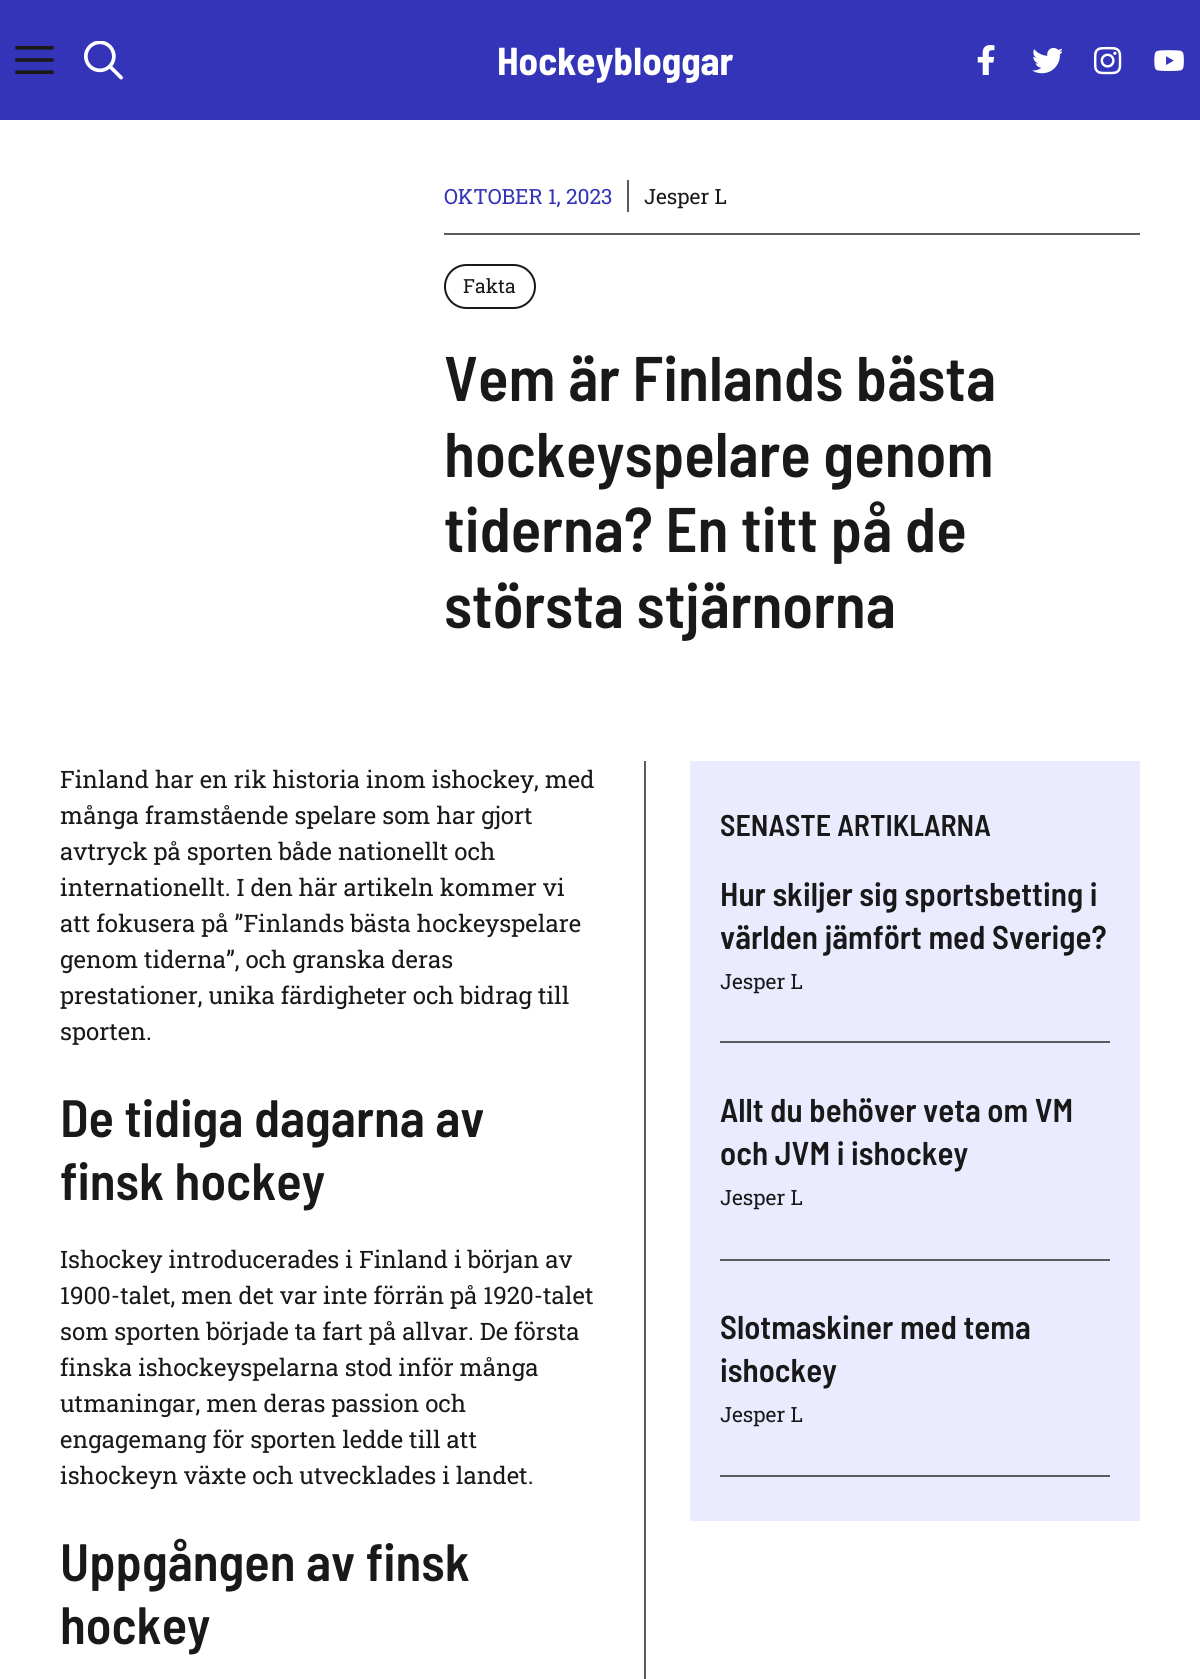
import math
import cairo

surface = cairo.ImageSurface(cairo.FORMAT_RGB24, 1200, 1679)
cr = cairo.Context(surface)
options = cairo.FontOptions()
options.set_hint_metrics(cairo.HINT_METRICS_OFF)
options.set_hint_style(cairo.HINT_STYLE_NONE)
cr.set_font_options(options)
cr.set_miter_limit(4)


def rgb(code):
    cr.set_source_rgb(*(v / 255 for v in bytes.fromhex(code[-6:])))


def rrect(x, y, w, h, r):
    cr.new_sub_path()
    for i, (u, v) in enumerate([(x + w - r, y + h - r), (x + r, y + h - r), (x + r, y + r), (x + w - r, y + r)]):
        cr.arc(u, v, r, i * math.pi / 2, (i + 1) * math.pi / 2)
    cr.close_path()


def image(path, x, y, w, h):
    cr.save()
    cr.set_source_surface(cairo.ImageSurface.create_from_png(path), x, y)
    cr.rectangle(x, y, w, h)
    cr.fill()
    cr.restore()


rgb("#ffffff")
cr.paint()
rgb("#3434b9")
cr.rectangle(0, 0, 1200, 120)
cr.fill()
image("img/1.png", 15, 46, 39, 28)
image("img/2.png", 84, 41, 39, 39)
image("img/3.png", 977, 45, 18, 30)
image("img/4.png", 1032, 47, 30, 27)
image("img/5.png", 1093, 46, 29, 29)
image("img/6.png", 1154, 50, 30, 21)
rgb("#5b5b5b")
cr.rectangle(444, 233, 696, 2)
cr.fill()
cr.rectangle(627, 180, 2, 32)
cr.fill()
rrect(445, 265, 90, 43, 21.5)
rgb("#191919")
cr.stroke()
for x, y, w, h, color in [
    (644, 761, 2, 918, "#5b5b5b"),
    (690, 761, 450, 760, "#ebebff"),
    (720, 1041, 390, 2, "#5b5b5b"),
    (720, 1259, 390, 2, "#5b5b5b"),
    (720, 1475, 390, 2, "#5b5b5b"),
]:
    rgb(color)
    cr.rectangle(x, y, w, h)
    cr.fill()
cr.select_font_face("Barlow Semi Condensed", cairo.FONT_SLANT_NORMAL, cairo.FONT_WEIGHT_BOLD)
cr.set_font_size(39)
rgb("#ffffff")
cr.move_to(497, 75)
cr.show_text("Hockeybloggar")
cr.select_font_face("Roboto Slab")
cr.set_font_size(21)
rgb("#3434b9")
cr.move_to(444, 204)
cr.show_text("OKTOBER 1, 2023")
rgb("#191919")
cr.move_to(644, 204)
cr.show_text("Jesper L")
cr.set_font_size(19.5)
cr.move_to(463, 293)
cr.show_text("Fakta")
cr.select_font_face("Barlow Semi Condensed SemiBold")
cr.set_font_size(63)
for x, y, s in [
    (444, 401, "Vem är Finlands bästa"),
    (444, 477, "hockeyspelare genom"),
    (444, 552, "tiderna? En titt på de"),
    (444, 628, "största stjärnorna"),
]:
    cr.move_to(x, y)
    cr.show_text(s)
cr.select_font_face("Roboto Slab")
cr.set_font_size(24)
for x, y, s in [
    (60, 788, "Finland har en rik historia inom ishockey, med"),
    (60, 824, "många framstående spelare som har gjort"),
    (60, 860, "avtryck på sporten både nationellt och"),
    (60, 896, "internationellt. I den här artikeln kommer vi"),
    (60, 932, "att fokusera på ”Finlands bästa hockeyspelare"),
    (60, 968, "genom tiderna”, och granska deras"),
    (60, 1004, "prestationer, unika färdigheter och bidrag till"),
    (60, 1040, "sporten."),
]:
    cr.move_to(x, y)
    cr.show_text(s)
cr.select_font_face("Barlow Semi Condensed SemiBold")
cr.set_font_size(52.5)
cr.move_to(60, 1137)
cr.show_text("De tidiga dagarna av")
cr.move_to(60, 1200)
cr.show_text("finsk hockey")
cr.select_font_face("Roboto Slab")
cr.set_font_size(24)
for x, y, s in [
    (60, 1268, "Ishockey introducerades i Finland i början av"),
    (60, 1304, "1900-talet, men det var inte förrän på 1920-talet"),
    (60, 1340, "som sporten började ta fart på allvar. De första"),
    (60, 1376, "finska ishockeyspelarna stod inför många"),
    (60, 1412, "utmaningar, men deras passion och"),
    (60, 1448, "engagemang för sporten ledde till att"),
    (60, 1484, "ishockeyn växte och utvecklades i landet."),
]:
    cr.move_to(x, y)
    cr.show_text(s)
cr.select_font_face("Barlow Semi Condensed SemiBold")
cr.set_font_size(52.5)
cr.move_to(60, 1581)
cr.show_text("Uppgången av finsk")
cr.move_to(60, 1644)
cr.show_text("hockey")
cr.set_font_size(30)
cr.move_to(720, 836)
cr.show_text("SENASTE ARTIKLARNA")
cr.set_font_size(33)
cr.move_to(720, 906)
cr.show_text("Hur skiljer sig sportsbetting i")
cr.move_to(720, 949)
cr.show_text("världen jämfört med Sverige?")
cr.select_font_face("Roboto Slab")
cr.set_font_size(21)
cr.move_to(720, 989)
cr.show_text("Jesper L")
cr.select_font_face("Barlow Semi Condensed SemiBold")
cr.set_font_size(33)
cr.move_to(720, 1122)
cr.show_text("Allt du behöver veta om VM")
cr.move_to(720, 1165)
cr.show_text("och JVM i ishockey")
cr.select_font_face("Roboto Slab")
cr.set_font_size(21)
cr.move_to(720, 1205)
cr.show_text("Jesper L")
cr.select_font_face("Barlow Semi Condensed SemiBold")
cr.set_font_size(33)
cr.move_to(720, 1339)
cr.show_text("Slotmaskiner med tema")
cr.move_to(720, 1382)
cr.show_text("ishockey")
cr.select_font_face("Roboto Slab")
cr.set_font_size(21)
cr.move_to(720, 1422)
cr.show_text("Jesper L")
surface.write_to_png("page.png")
